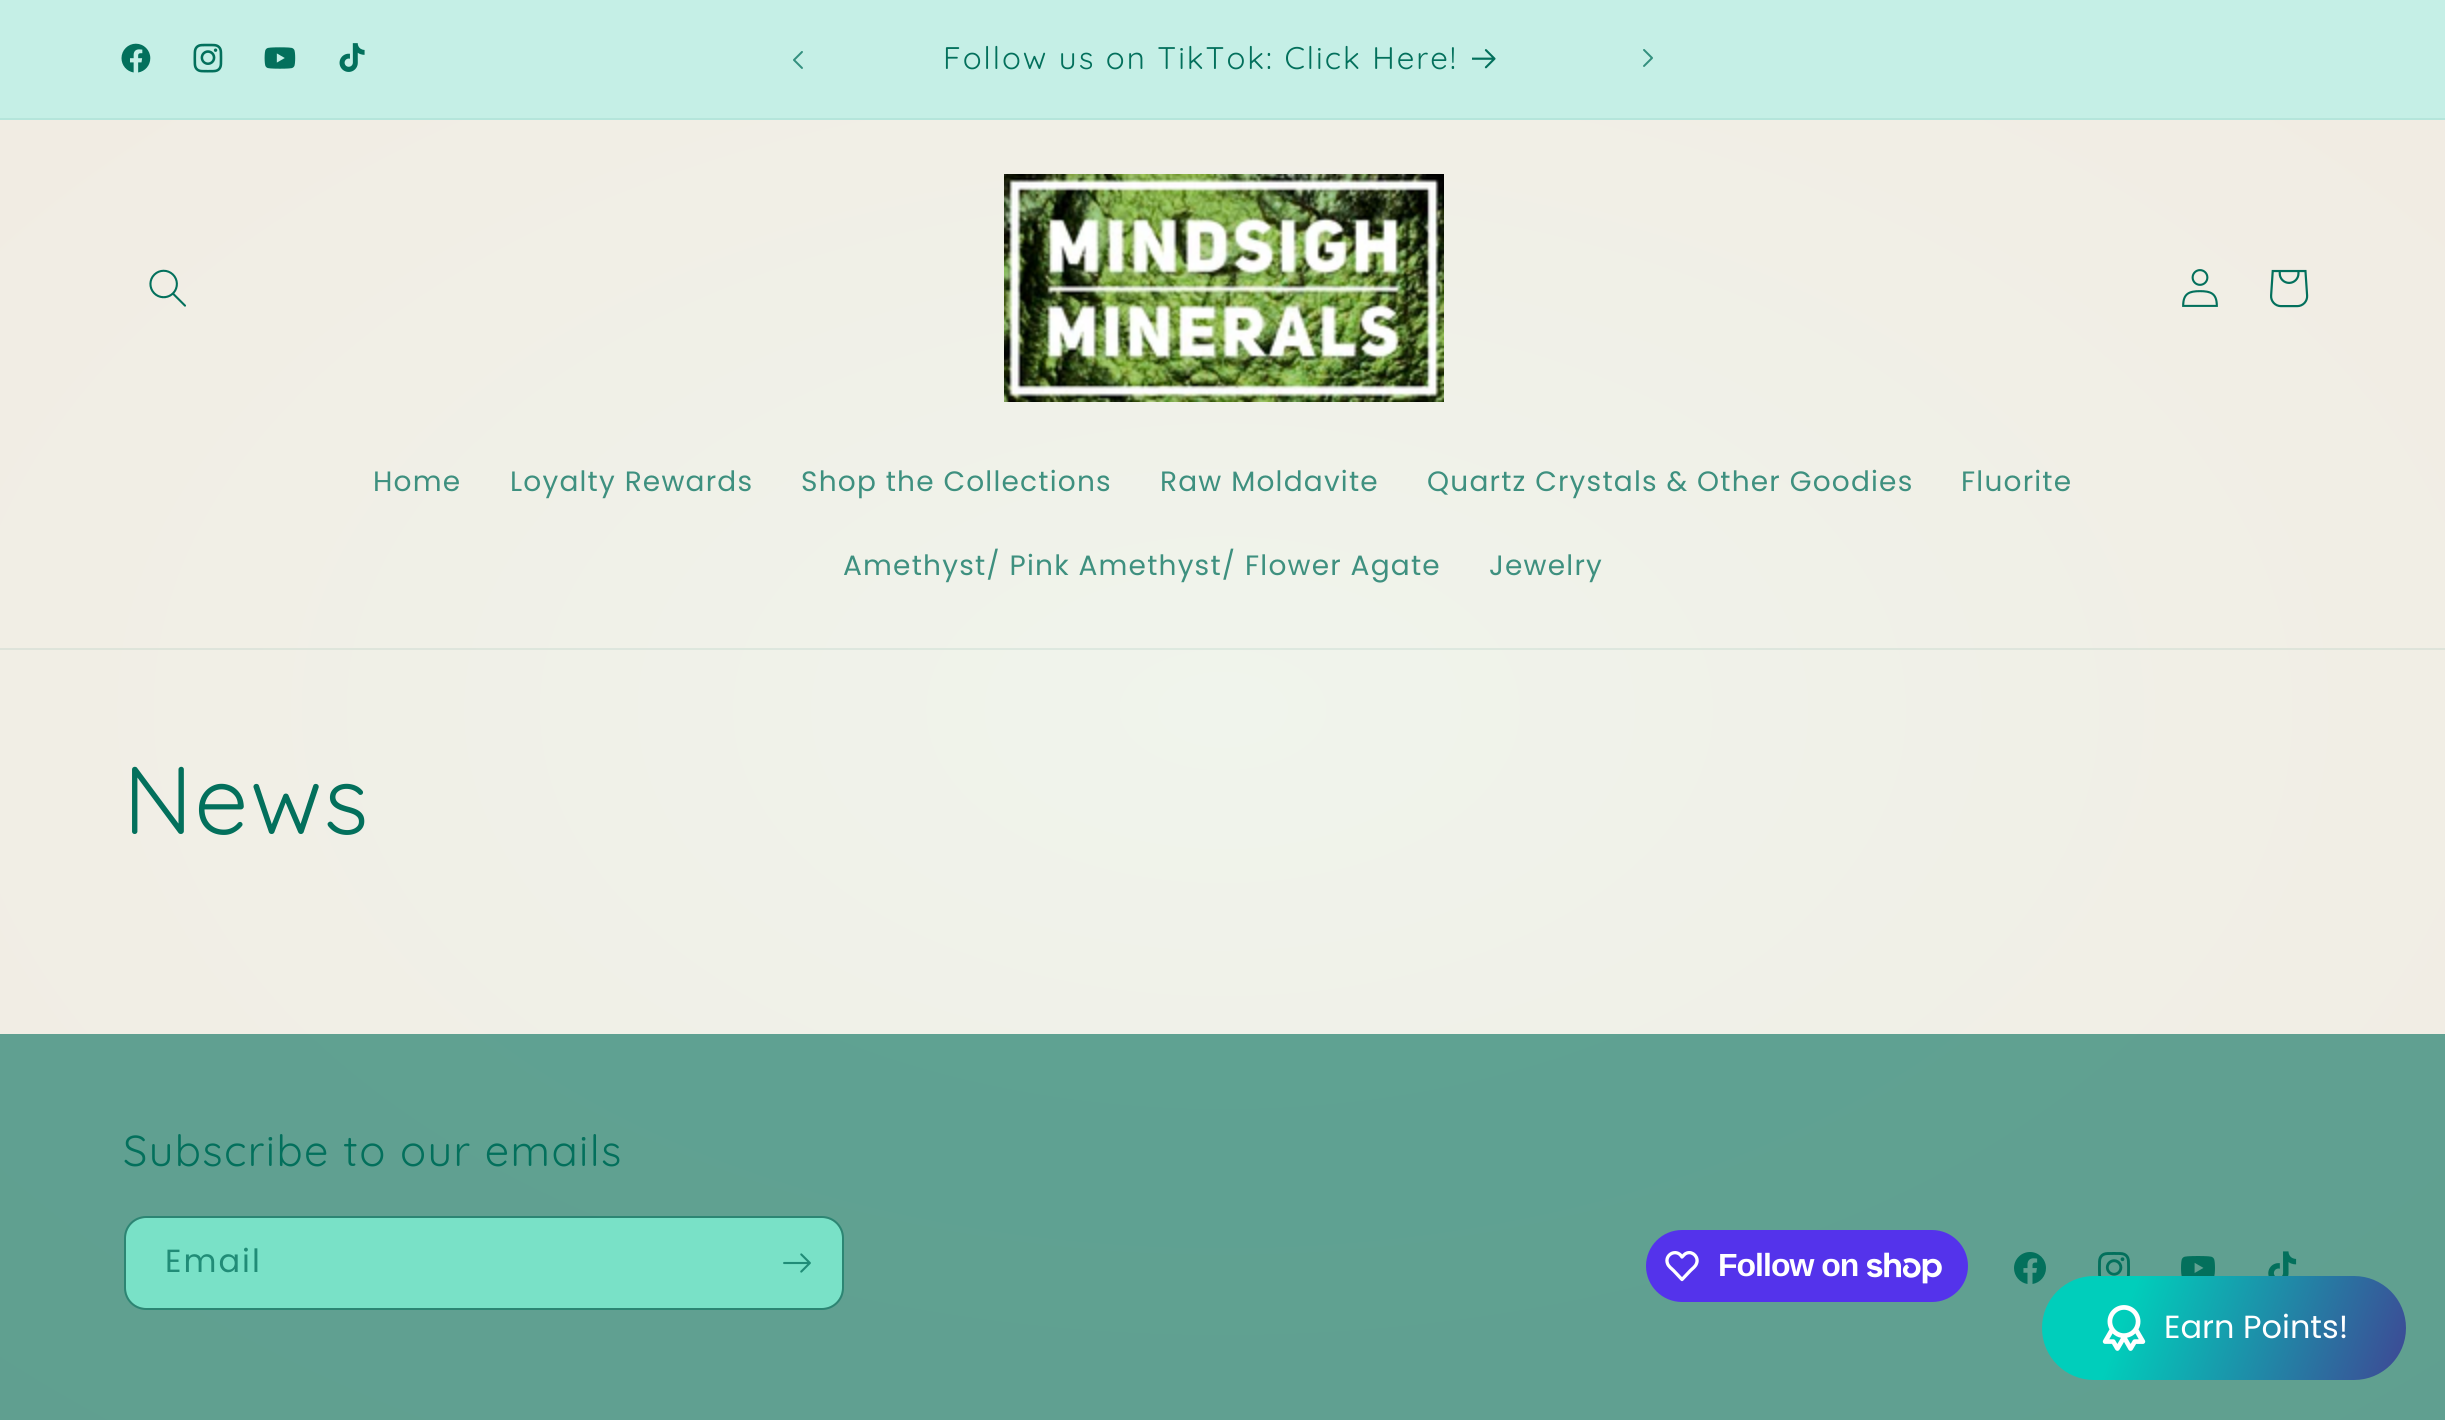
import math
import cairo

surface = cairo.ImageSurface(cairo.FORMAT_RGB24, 2445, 1420)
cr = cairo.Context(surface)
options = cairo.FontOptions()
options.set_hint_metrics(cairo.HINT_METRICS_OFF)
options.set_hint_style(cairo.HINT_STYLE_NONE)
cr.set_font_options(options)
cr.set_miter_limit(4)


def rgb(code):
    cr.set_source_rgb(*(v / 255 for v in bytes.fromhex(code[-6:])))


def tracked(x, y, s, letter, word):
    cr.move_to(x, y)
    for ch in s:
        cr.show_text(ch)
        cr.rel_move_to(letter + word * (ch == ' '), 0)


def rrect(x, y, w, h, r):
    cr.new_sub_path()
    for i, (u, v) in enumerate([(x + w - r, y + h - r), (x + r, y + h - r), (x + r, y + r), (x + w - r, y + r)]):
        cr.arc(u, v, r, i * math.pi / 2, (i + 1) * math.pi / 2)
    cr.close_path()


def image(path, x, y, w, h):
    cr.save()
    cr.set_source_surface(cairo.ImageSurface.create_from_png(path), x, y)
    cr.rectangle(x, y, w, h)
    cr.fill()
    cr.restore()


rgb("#ffffff")
cr.paint()
gradient = cairo.RadialGradient(0, 0, 0, 0, 0, 1)
gradient.set_matrix(cairo.Matrix(1 / 1730, 0, 0, 1 / 1004, -1 * 1223 / 1730, -1 * 710 / 1004))
gradient.add_color_stop_rgba(0, 0.941, 0.957, 0.925, 1)
gradient.add_color_stop_rgba(1, 0.945, 0.922, 0.886, 1)
cr.set_source(gradient)
cr.rectangle(0, 120, 2445, 1300)
cr.fill()
gradient = cairo.RadialGradient(0, 0, 0, 0, 0, 1)
gradient.set_matrix(cairo.Matrix(1 / 1730, 0, 0, 1 / 1004, -1 * 1223 / 1730, -1 * 710 / 1004))
gradient.add_color_stop_rgba(0, 0.867, 0.914, 0.878, 1)
gradient.add_color_stop_rgba(1, 0.871, 0.882, 0.843, 1)
cr.set_source(gradient)
cr.rectangle(0, 648, 2445, 2)
cr.fill()
gradient = cairo.LinearGradient(1223, 1420, 1223, 0)
gradient.add_color_stop_rgba(0.33, 0.012, 0.439, 0.361, 0.61)
gradient.add_color_stop_rgba(0.79, 0.773, 0.937, 0.902, 1)
cr.set_source(gradient)
cr.rectangle(0, 0, 2445, 118)
cr.fill()
rgb("#b5e5db")
cr.rectangle(0, 118, 2445, 2)
cr.fill()
image("img/1.png", 121, 43, 30, 30)
image("img/2.png", 193, 43, 30, 30)
image("img/3.png", 264, 47, 32, 22)
image("img/4.png", 339, 43, 26, 29)
image("img/5.png", 793, 51, 10, 18)
image("img/6.png", 1472, 49, 24, 20)
image("img/7.png", 1643, 49, 10, 18)
image("img/8.png", 149, 269, 37, 38)
image("img/9.png", 1004, 174, 440, 228)
image("img/10.png", 2182, 269, 36, 38)
image("img/11.png", 2270, 269, 39, 39)
gradient = cairo.LinearGradient(1223, 1420, 1223, 0)
gradient.add_color_stop_rgba(0.33, 0.012, 0.439, 0.361, 0.61)
gradient.add_color_stop_rgba(0.79, 0.773, 0.937, 0.902, 1)
cr.set_source(gradient)
cr.rectangle(0, 1034, 2445, 386)
cr.fill()
rgb("#79e1c7")
rrect(126, 1218, 716, 90, 20)
cr.fill()
rrect(125, 1217, 718, 92, 21)
cr.set_source_rgba(0.012, 0.439, 0.361, 0.55)
cr.stroke()
image("img/12.png", 783, 1253, 28, 20)
rgb("#5433eb")
rrect(1646, 1230, 322, 72, 36)
cr.fill()
cr.new_path()
cr.move_to(1680.5, 1255)
cr.line_to(1682, 1257)
cr.curve_to(1683.5, 1255.5, 1685, 1253.5, 1687, 1253)
cr.curve_to(1693, 1251, 1699, 1257.5, 1696.5, 1263.5)
cr.curve_to(1695.5, 1266.5, 1692.5, 1268.5, 1690.5, 1270.5)
cr.line_to(1682, 1279.5)
cr.line_to(1673.5, 1270.5)
cr.curve_to(1671.5, 1268.5, 1668.5, 1266.5, 1667.5, 1263.5)
cr.curve_to(1664.5, 1255.5, 1674.5, 1249, 1680.5, 1255)
cr.close_path()
rgb("#ffffff")
cr.set_line_width(3.3)
cr.set_line_join(cairo.LINE_JOIN_ROUND)
cr.stroke()
image("img/13.png", 1867, 1252, 75, 32)
image("img/14.png", 2014, 1252, 32, 32)
image("img/15.png", 2098, 1252, 32, 24)
image("img/16.png", 2181, 1256, 34, 20)
image("img/17.png", 2268, 1251, 29, 25)
gradient = cairo.LinearGradient(2046, 1265, 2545, 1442)
gradient.add_color_stop_rgba(0.17, 0, 0.808, 0.733, 1)
gradient.add_color_stop_rgba(1, 0.373, 0, 0.502, 1)
cr.set_source(gradient)
rrect(2042, 1276, 364, 104, 52)
cr.fill()
image("img/18.png", 2102, 1305, 44, 46)
cr.select_font_face("Quicksand")
cr.set_font_size(31.25)
rgb("#03705c")
tracked(943, 69, "Follow us on TikTok: Click Here!", 2, 0)
cr.select_font_face("Poppins")
cr.set_font_size(28)
rgb("#3e907f")
for x, y, s in [
    (373, 491, "Home"),
    (510, 491, "Loyalty Rewards"),
    (801, 491, "Shop the Collections"),
    (1160, 491, "Raw Moldavite"),
    (1427, 491, "Quartz Crystals & Other Goodies"),
    (1961, 491, "Fluorite"),
    (843, 575, "Amethyst/ Pink Amethyst/ Flower Agate"),
    (1489, 575, "Jewelry"),
]:
    tracked(x, y, s, 1.2, 0)
cr.select_font_face("Quicksand")
cr.set_font_size(96)
rgb("#03705c")
tracked(123, 834, "News", 1.4, 0)
cr.set_font_size(43.25)
tracked(123, 1166, "Subscribe to our emails", 1.4, 0)
cr.select_font_face("Poppins")
cr.set_font_size(32)
rgb("#218c77")
tracked(165, 1272, "Email", 2, 0)
cr.select_font_face("Liberation Sans", cairo.FONT_SLANT_NORMAL, cairo.FONT_WEIGHT_BOLD)
rgb("#ffffff")
tracked(1718, 1276, "Follow on", -1, 0)
cr.select_font_face("Poppins")
cr.move_to(2164, 1338)
cr.show_text("Earn Points!")
surface.write_to_png("page.png")
